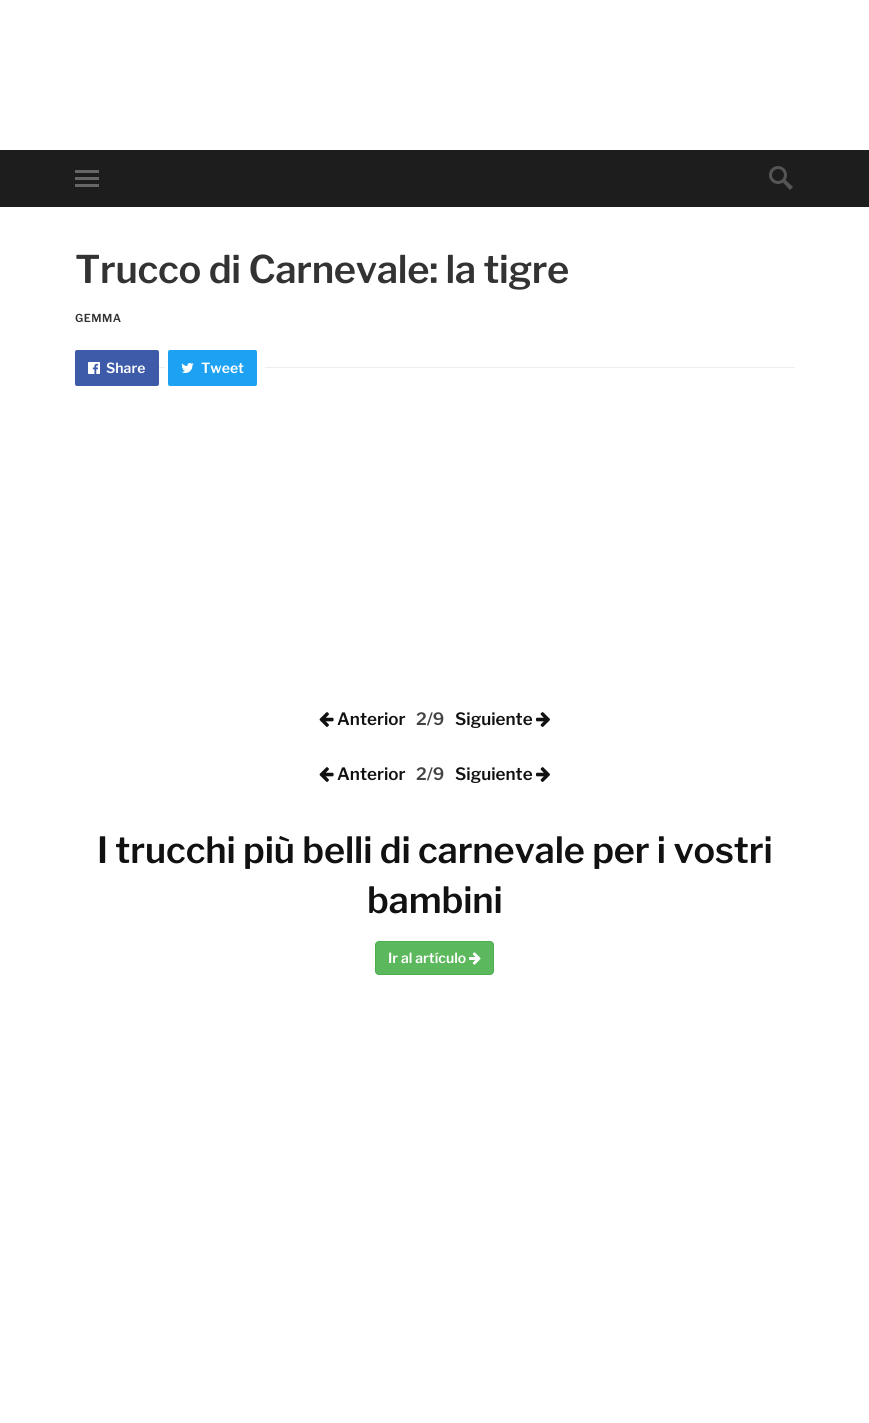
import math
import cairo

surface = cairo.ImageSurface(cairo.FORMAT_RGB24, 869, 1423)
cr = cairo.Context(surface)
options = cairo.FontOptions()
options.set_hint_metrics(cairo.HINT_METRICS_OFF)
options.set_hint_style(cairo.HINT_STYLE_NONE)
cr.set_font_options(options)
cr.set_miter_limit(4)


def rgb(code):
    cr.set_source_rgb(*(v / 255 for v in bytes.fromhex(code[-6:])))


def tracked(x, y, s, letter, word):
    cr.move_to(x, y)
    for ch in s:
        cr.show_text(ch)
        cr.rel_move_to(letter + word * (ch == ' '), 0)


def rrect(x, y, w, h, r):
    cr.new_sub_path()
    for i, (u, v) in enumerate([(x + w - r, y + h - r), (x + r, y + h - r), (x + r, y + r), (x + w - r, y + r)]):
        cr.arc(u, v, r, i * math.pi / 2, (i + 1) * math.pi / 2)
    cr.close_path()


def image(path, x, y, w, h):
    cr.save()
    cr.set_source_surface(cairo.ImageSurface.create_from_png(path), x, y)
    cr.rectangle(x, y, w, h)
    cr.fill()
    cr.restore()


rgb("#ffffff")
cr.paint()
for x, y, w, h, color in [
    (0, 150, 869, 57, "#1d1d1d"),
    (75, 170, 24, 3, "#666666"),
    (75, 177, 24, 3, "#666666"),
    (75, 184, 24, 3, "#666666"),
]:
    rgb(color)
    cr.rectangle(x, y, w, h)
    cr.fill()
rgb("#555555")
cr.arc(778, 175, 9, 0, 2 * math.pi)
cr.fill()
rgb("#1d1d1d")
cr.arc(778, 175, 6, 0, 2 * math.pi)
cr.fill()
rgb("#555555")
cr.new_path()
cr.move_to(785, 179.5)
cr.line_to(793, 187)
cr.line_to(790, 190)
cr.line_to(782, 181.5)
cr.curve_to(781, 179.5, 783.5, 178, 785, 179.5)
cr.close_path()
cr.fill()
rgb("#eeeeee")
cr.rectangle(159, 367, 636, 1)
cr.fill()
rgb("#ffffff")
cr.rectangle(165, 367, 100, 1)
cr.fill()
rgb("#3d5ba8")
rrect(75, 350, 84, 36, 2)
cr.fill()
image("img/1.png", 88, 362, 12, 12)
rgb("#1da1f2")
rrect(168, 350, 89, 36, 2)
cr.fill()
image("img/2.png", 181, 363, 13, 10)
image("img/3.png", 319, 712, 15, 15)
image("img/4.png", 536, 712, 14, 15)
image("img/3.png", 319, 767, 15, 15)
image("img/4.png", 536, 767, 14, 15)
rgb("#5cb85c")
rrect(375.5, 941.5, 118, 33, 3.5)
cr.fill_preserve()
rgb("#4cae4c")
cr.set_line_width(1)
cr.stroke()
image("img/5.png", 469, 952, 12, 13)
cr.select_font_face("Libre Franklin SemiBold")
cr.set_font_size(38)
rgb("#333333")
tracked(75, 283, "Trucco di Carnevale: la tigre", -0.3, 0)
cr.set_font_size(11)
tracked(75, 322, "GEMMA", 0.5, 0)
cr.set_font_size(14)
rgb("#ffffff")
cr.move_to(106, 373)
cr.show_text("Share")
cr.move_to(201, 373)
cr.show_text("Tweet")
cr.set_font_size(17)
rgb("#111111")
cr.move_to(337, 725)
cr.show_text("Anterior")
rgb("#444444")
cr.move_to(416, 725)
cr.show_text("2/9")
rgb("#111111")
cr.move_to(455, 725)
cr.show_text("Siguiente")
cr.move_to(337, 780)
cr.show_text("Anterior")
rgb("#444444")
cr.move_to(416, 780)
cr.show_text("2/9")
rgb("#111111")
cr.move_to(455, 780)
cr.show_text("Siguiente")
cr.set_font_size(36)
tracked(97, 863, "I trucchi più belli di carnevale per i vostri", -0.1, 0)
tracked(367, 913, "bambini", -0.1, 0)
cr.set_font_size(14)
rgb("#ffffff")
cr.move_to(388, 963)
cr.show_text("Ir al artículo")
surface.write_to_png("page.png")
